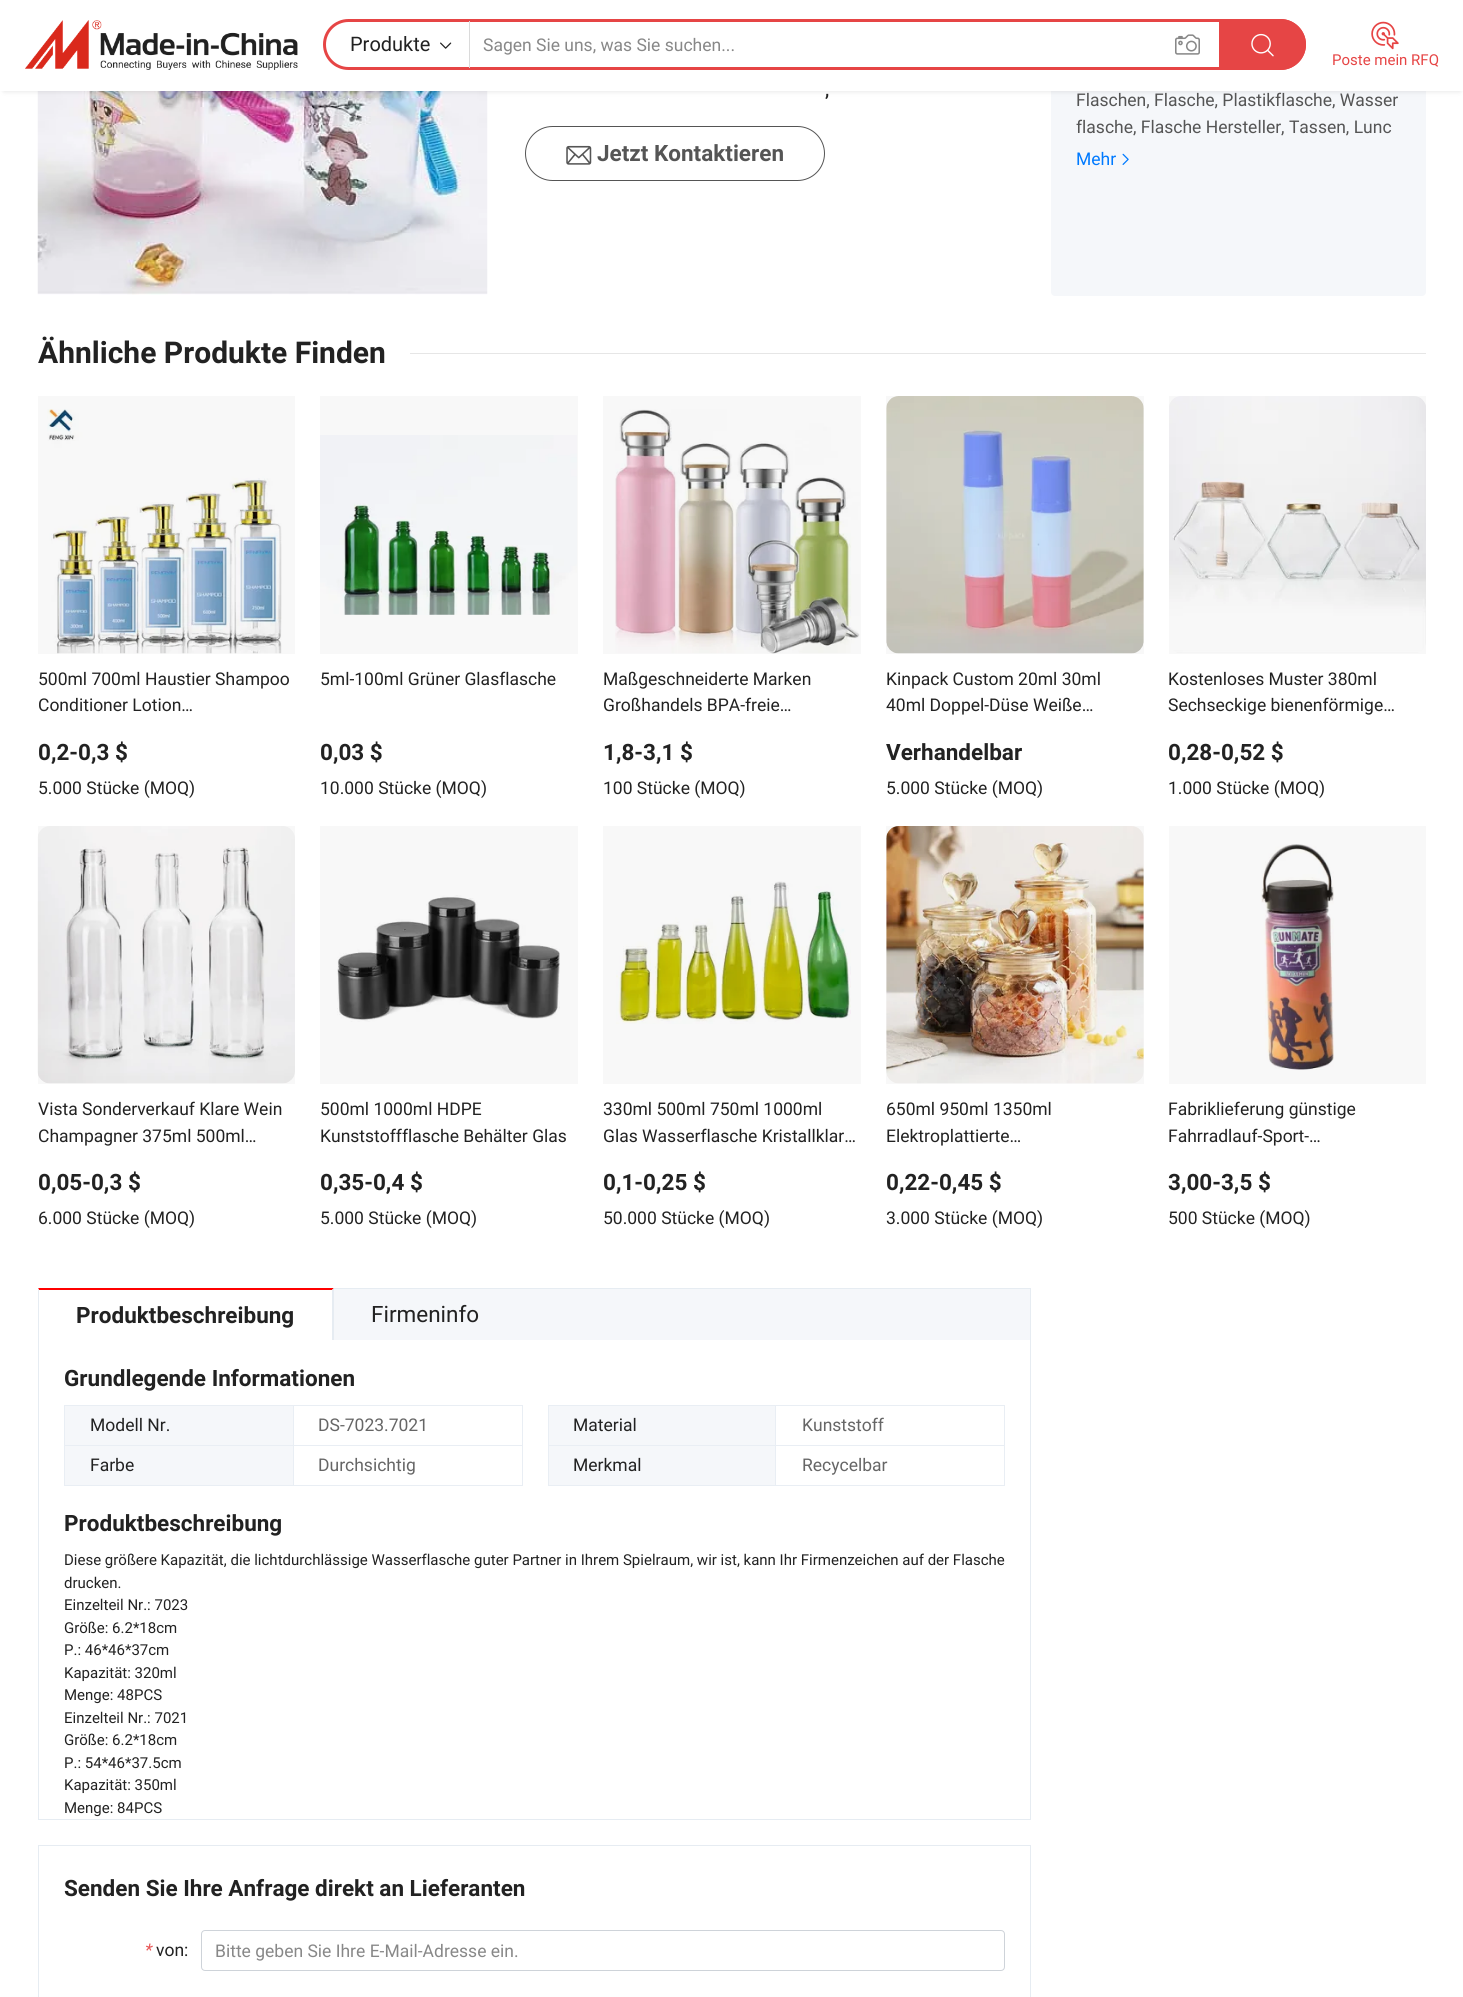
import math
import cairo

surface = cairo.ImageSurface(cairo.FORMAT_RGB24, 1463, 1997)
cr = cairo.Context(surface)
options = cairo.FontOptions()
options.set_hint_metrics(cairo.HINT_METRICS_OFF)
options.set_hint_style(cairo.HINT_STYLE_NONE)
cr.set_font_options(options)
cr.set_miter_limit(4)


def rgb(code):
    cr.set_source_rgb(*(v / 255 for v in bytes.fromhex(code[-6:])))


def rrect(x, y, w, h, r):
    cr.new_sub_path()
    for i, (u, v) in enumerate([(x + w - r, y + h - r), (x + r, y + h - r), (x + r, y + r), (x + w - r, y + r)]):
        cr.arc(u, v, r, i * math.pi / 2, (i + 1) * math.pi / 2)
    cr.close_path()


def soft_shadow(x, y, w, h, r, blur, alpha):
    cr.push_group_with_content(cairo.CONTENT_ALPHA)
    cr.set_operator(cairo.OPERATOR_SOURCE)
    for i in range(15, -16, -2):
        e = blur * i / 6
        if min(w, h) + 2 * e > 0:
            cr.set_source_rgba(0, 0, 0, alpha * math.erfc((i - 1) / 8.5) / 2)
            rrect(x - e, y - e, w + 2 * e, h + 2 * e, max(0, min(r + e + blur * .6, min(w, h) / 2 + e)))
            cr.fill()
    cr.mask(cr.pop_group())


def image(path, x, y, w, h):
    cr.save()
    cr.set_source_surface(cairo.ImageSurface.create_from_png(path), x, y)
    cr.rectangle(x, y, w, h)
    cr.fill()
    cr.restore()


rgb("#ffffff")
cr.paint()
image("img/6.png", 37, 91, 451, 204)
rgb("#f5f7fa")
rrect(1051, -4, 375, 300, 4)
cr.fill()
rgb("#000000")
soft_shadow(4, 8, 1456, 83, 0, 3, 0.12)
rgb("#ffffff")
cr.rectangle(0, 0, 1463, 91)
cr.fill()
image("img/1.png", 25, 20, 273, 50)
rrect(324.5, 20.5, 980, 48, 24)
rgb("#e64545")
cr.set_line_width(3)
cr.stroke()
rgb("#dadada")
cr.rectangle(469, 21, 1, 47)
cr.fill()
image("img/2.png", 440, 42, 12, 7)
image("img/3.png", 1175, 34, 25, 21)
rgb("#e64545")
cr.new_path()
cr.move_to(1219, 19)
cr.line_to(1280.5, 19)
cr.curve_to(1294.5, 19, 1306, 30.5, 1306, 44.5)
cr.curve_to(1306, 58.5, 1294.5, 70, 1280.5, 70)
cr.line_to(1219, 70)
cr.close_path()
cr.fill()
image("img/4.png", 1251, 33, 23, 24)
image("img/5.png", 1371, 21, 28, 29)
rrect(525.5, 126.5, 299, 54, 27)
rgb("#555555")
cr.set_line_width(1)
cr.stroke()
image("img/7.png", 566, 145, 26, 20)
image("img/8.png", 1122, 153, 7, 12)
rgb("#e6e6e6")
cr.rectangle(410, 353, 1016, 1)
cr.fill()
image("img/9.png", 47, 409, 235, 245)
cr.set_source_rgba(0, 0, 0, 0.03)
cr.rectangle(38, 396, 257, 258)
cr.fill()
image("img/10.png", 320, 435, 257, 180)
cr.rectangle(320, 396, 258, 258)
cr.fill()
image("img/11.png", 615, 409, 245, 245)
cr.rectangle(603, 396, 258, 258)
cr.fill()
image("img/12.png", 886, 396, 258, 258)
cr.rectangle(886, 396, 258, 258)
cr.fill()
image("img/13.png", 1169, 396, 257, 257)
cr.rectangle(1169, 396, 257, 258)
cr.fill()
image("img/14.png", 37, 826, 258, 258)
cr.rectangle(38, 826, 257, 258)
cr.fill()
image("img/15.png", 337, 895, 223, 127)
cr.rectangle(320, 826, 258, 258)
cr.fill()
image("img/16.png", 616, 881, 235, 143)
cr.rectangle(603, 826, 258, 258)
cr.fill()
image("img/17.png", 886, 826, 258, 258)
cr.rectangle(886, 826, 258, 258)
cr.fill()
image("img/18.png", 1261, 844, 73, 226)
cr.rectangle(1169, 826, 257, 258)
cr.fill()
cr.rectangle(38.5, 1288.5, 992, 531)
rgb("#e6ecf2")
cr.stroke()
rgb("#f5f7fa")
cr.rectangle(334, 1289, 696, 51)
cr.fill()
rgb("#ffffff")
cr.rectangle(38, 1288, 296, 52)
cr.fill()
rgb("#ff0000")
cr.new_path()
cr.move_to(38, 1288)
cr.line_to(334, 1288)
cr.line_to(332, 1290)
cr.line_to(39, 1290)
cr.close_path()
cr.fill()
rgb("#e6ecf2")
cr.new_path()
cr.move_to(334, 1288)
cr.line_to(334, 1340)
cr.line_to(332, 1340)
cr.line_to(332, 1290)
cr.close_path()
cr.fill()
cr.new_path()
cr.move_to(38, 1340)
cr.line_to(38, 1288)
cr.line_to(39, 1290)
cr.line_to(39, 1340)
cr.close_path()
cr.fill()
for x, y, w, h, color in [
    (65, 1406, 228, 39, "#f5f7fa"),
    (64, 1405, 229, 1, "#e9eef4"),
    (64, 1405, 1, 41, "#e9eef4"),
]:
    rgb(color)
    cr.rectangle(x, y, w, h)
    cr.fill()
cr.rectangle(293.5, 1405.5, 229, 40)
cr.stroke()
for x, y, w, h, color in [
    (549, 1406, 226, 39, "#f5f7fa"),
    (548, 1405, 227, 1, "#e9eef4"),
    (548, 1405, 1, 41, "#e9eef4"),
]:
    rgb(color)
    cr.rectangle(x, y, w, h)
    cr.fill()
cr.rectangle(775.5, 1405.5, 229, 40)
cr.stroke()
for x, y, w, h, color in [
    (65, 1446, 228, 39, "#f5f7fa"),
    (64, 1445, 229, 1, "#e9eef4"),
    (64, 1485, 229, 1, "#e9eef4"),
    (64, 1445, 1, 41, "#e9eef4"),
]:
    rgb(color)
    cr.rectangle(x, y, w, h)
    cr.fill()
cr.rectangle(293.5, 1445.5, 229, 40)
cr.stroke()
for x, y, w, h, color in [
    (549, 1446, 226, 39, "#f5f7fa"),
    (548, 1445, 227, 1, "#e9eef4"),
    (548, 1485, 227, 1, "#e9eef4"),
    (548, 1445, 1, 41, "#e9eef4"),
]:
    rgb(color)
    cr.rectangle(x, y, w, h)
    cr.fill()
cr.rectangle(775.5, 1445.5, 229, 40)
cr.stroke()
cr.rectangle(38.5, 1845.5, 992, 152)
rgb("#e6ecf2")
cr.stroke()
rrect(201.5, 1930.5, 803, 40, 3.5)
rgb("#ced3d9")
cr.stroke()
cr.select_font_face("Roboto")
cr.set_font_size(20)
rgb("#222222")
cr.move_to(350, 51)
cr.show_text("Produkte")
cr.set_font_size(17.5)
rgb("#888888")
cr.move_to(483, 51)
cr.show_text("Sagen Sie uns, was Sie suchen...")
cr.set_font_size(15)
rgb("#e64545")
cr.move_to(1332, 65)
cr.show_text("Poste mein RFQ")
cr.select_font_face("Roboto Medium")
cr.set_font_size(19)
rgb("#222222")
cr.move_to(825, 96)
cr.show_text(",")
cr.select_font_face("Roboto", cairo.FONT_SLANT_NORMAL, cairo.FONT_WEIGHT_BOLD)
cr.set_font_size(22.5)
rgb("#555555")
cr.move_to(597, 161)
cr.show_text("Jetzt Kontaktieren")
cr.select_font_face("Roboto")
cr.set_font_size(17.5)
cr.move_to(1076, 106)
cr.show_text("Flaschen, Flasche, Plastikflasche, Wasser")
cr.move_to(1076, 133)
cr.show_text("flasche, Flasche Hersteller, Tassen, Lunc")
rgb("#007aff")
cr.move_to(1076, 165)
cr.show_text("Mehr")
cr.select_font_face("Roboto", cairo.FONT_SLANT_NORMAL, cairo.FONT_WEIGHT_BOLD)
cr.set_font_size(30)
rgb("#222222")
cr.move_to(38, 363)
cr.show_text("Ähnliche Produkte Finden")
cr.select_font_face("Roboto")
cr.set_font_size(17.5)
cr.move_to(38, 685)
cr.show_text("500ml 700ml Haustier Shampoo")
cr.move_to(38, 711)
cr.show_text("Conditioner Lotion…")
cr.select_font_face("Roboto", cairo.FONT_SLANT_NORMAL, cairo.FONT_WEIGHT_BOLD)
cr.set_font_size(22.5)
cr.move_to(38, 760)
cr.show_text("0,2-0,3 $")
cr.select_font_face("Roboto")
cr.set_font_size(17.5)
cr.move_to(38, 794)
cr.show_text("5.000 Stücke (MOQ)")
cr.move_to(320, 685)
cr.show_text("5ml-100ml Grüner Glasflasche")
cr.select_font_face("Roboto", cairo.FONT_SLANT_NORMAL, cairo.FONT_WEIGHT_BOLD)
cr.set_font_size(22.5)
cr.move_to(320, 760)
cr.show_text("0,03 $")
cr.select_font_face("Roboto")
cr.set_font_size(17.5)
for x, y, s in [
    (320, 794, "10.000 Stücke (MOQ)"),
    (603, 685, "Maßgeschneiderte Marken"),
    (603, 711, "Großhandels BPA-freie…"),
]:
    cr.move_to(x, y)
    cr.show_text(s)
cr.select_font_face("Roboto", cairo.FONT_SLANT_NORMAL, cairo.FONT_WEIGHT_BOLD)
cr.set_font_size(22.5)
cr.move_to(603, 760)
cr.show_text("1,8-3,1 $")
cr.select_font_face("Roboto")
cr.set_font_size(17.5)
for x, y, s in [
    (603, 794, "100 Stücke (MOQ)"),
    (886, 685, "Kinpack Custom 20ml 30ml"),
    (886, 711, "40ml Doppel-Düse Weiße…"),
]:
    cr.move_to(x, y)
    cr.show_text(s)
cr.select_font_face("Roboto", cairo.FONT_SLANT_NORMAL, cairo.FONT_WEIGHT_BOLD)
cr.set_font_size(22.5)
cr.move_to(886, 760)
cr.show_text("Verhandelbar")
cr.select_font_face("Roboto")
cr.set_font_size(17.5)
for x, y, s in [
    (886, 794, "5.000 Stücke (MOQ)"),
    (1168, 685, "Kostenloses Muster 380ml"),
    (1168, 711, "Sechseckige bienenförmige…"),
]:
    cr.move_to(x, y)
    cr.show_text(s)
cr.select_font_face("Roboto", cairo.FONT_SLANT_NORMAL, cairo.FONT_WEIGHT_BOLD)
cr.set_font_size(22.5)
cr.move_to(1168, 760)
cr.show_text("0,28-0,52 $")
cr.select_font_face("Roboto")
cr.set_font_size(17.5)
for x, y, s in [
    (1168, 794, "1.000 Stücke (MOQ)"),
    (38, 1115, "Vista Sonderverkauf Klare Wein"),
    (38, 1142, "Champagner 375ml 500ml…"),
]:
    cr.move_to(x, y)
    cr.show_text(s)
cr.select_font_face("Roboto", cairo.FONT_SLANT_NORMAL, cairo.FONT_WEIGHT_BOLD)
cr.set_font_size(22.5)
cr.move_to(38, 1190)
cr.show_text("0,05-0,3 $")
cr.select_font_face("Roboto")
cr.set_font_size(17.5)
for x, y, s in [
    (38, 1224, "6.000 Stücke (MOQ)"),
    (320, 1115, "500ml 1000ml HDPE"),
    (320, 1142, "Kunststoffflasche Behälter Glas"),
]:
    cr.move_to(x, y)
    cr.show_text(s)
cr.select_font_face("Roboto", cairo.FONT_SLANT_NORMAL, cairo.FONT_WEIGHT_BOLD)
cr.set_font_size(22.5)
cr.move_to(320, 1190)
cr.show_text("0,35-0,4 $")
cr.select_font_face("Roboto")
cr.set_font_size(17.5)
for x, y, s in [
    (320, 1224, "5.000 Stücke (MOQ)"),
    (603, 1115, "330ml 500ml 750ml 1000ml"),
    (603, 1142, "Glas Wasserflasche Kristallklar…"),
]:
    cr.move_to(x, y)
    cr.show_text(s)
cr.select_font_face("Roboto", cairo.FONT_SLANT_NORMAL, cairo.FONT_WEIGHT_BOLD)
cr.set_font_size(22.5)
cr.move_to(603, 1190)
cr.show_text("0,1-0,25 $")
cr.select_font_face("Roboto")
cr.set_font_size(17.5)
for x, y, s in [
    (603, 1224, "50.000 Stücke (MOQ)"),
    (886, 1115, "650ml 950ml 1350ml"),
    (886, 1142, "Elektroplattierte…"),
]:
    cr.move_to(x, y)
    cr.show_text(s)
cr.select_font_face("Roboto", cairo.FONT_SLANT_NORMAL, cairo.FONT_WEIGHT_BOLD)
cr.set_font_size(22.5)
cr.move_to(886, 1190)
cr.show_text("0,22-0,45 $")
cr.select_font_face("Roboto")
cr.set_font_size(17.5)
for x, y, s in [
    (886, 1224, "3.000 Stücke (MOQ)"),
    (1168, 1115, "Fabriklieferung günstige"),
    (1168, 1142, "Fahrradlauf-Sport-…"),
]:
    cr.move_to(x, y)
    cr.show_text(s)
cr.select_font_face("Roboto", cairo.FONT_SLANT_NORMAL, cairo.FONT_WEIGHT_BOLD)
cr.set_font_size(22.5)
cr.move_to(1168, 1190)
cr.show_text("3,00-3,5 $")
cr.select_font_face("Roboto")
cr.set_font_size(17.5)
cr.move_to(1168, 1224)
cr.show_text("500 Stücke (MOQ)")
cr.select_font_face("Roboto", cairo.FONT_SLANT_NORMAL, cairo.FONT_WEIGHT_BOLD)
cr.set_font_size(22.5)
cr.move_to(76, 1323)
cr.show_text("Produktbeschreibung")
cr.select_font_face("Roboto")
cr.move_to(371, 1322)
cr.show_text("Firmeninfo")
cr.select_font_face("Roboto", cairo.FONT_SLANT_NORMAL, cairo.FONT_WEIGHT_BOLD)
cr.move_to(64, 1386)
cr.show_text("Grundlegende Informationen")
cr.select_font_face("Roboto")
cr.set_font_size(17.5)
cr.move_to(90, 1431)
cr.show_text("Modell Nr.")
rgb("#666666")
cr.move_to(318, 1431)
cr.show_text("DS-7023.7021")
rgb("#222222")
cr.move_to(573, 1431)
cr.show_text("Material")
rgb("#666666")
cr.move_to(802, 1431)
cr.show_text("Kunststoff")
rgb("#222222")
cr.move_to(90, 1471)
cr.show_text("Farbe")
rgb("#666666")
cr.move_to(318, 1471)
cr.show_text("Durchsichtig")
rgb("#222222")
cr.move_to(573, 1471)
cr.show_text("Merkmal")
rgb("#666666")
cr.move_to(802, 1471)
cr.show_text("Recycelbar")
cr.select_font_face("Roboto", cairo.FONT_SLANT_NORMAL, cairo.FONT_WEIGHT_BOLD)
cr.set_font_size(22.5)
rgb("#222222")
cr.move_to(64, 1531)
cr.show_text("Produktbeschreibung")
cr.select_font_face("Roboto")
cr.set_font_size(15)
for x, y, s in [
    (64, 1565, "Diese größere Kapazität, die lichtdurchlässige Wasserflasche guter Partner in Ihrem Spielraum, wir ist, kann Ihr Firmenzeichen auf der Flasche"),
    (64, 1588, "drucken."),
    (64, 1610, "Einzelteil Nr.: 7023"),
    (64, 1633, "Größe: 6.2*18cm"),
    (64, 1655, "P.: 46*46*37cm"),
    (64, 1678, "Kapazität: 320ml"),
    (64, 1700, "Menge: 48PCS"),
    (64, 1723, "Einzelteil Nr.: 7021"),
    (64, 1745, "Größe: 6.2*18cm"),
    (64, 1768, "P.: 54*46*37.5cm"),
    (64, 1790, "Kapazität: 350ml"),
    (64, 1813, "Menge: 84PCS"),
]:
    cr.move_to(x, y)
    cr.show_text(s)
cr.select_font_face("Roboto", cairo.FONT_SLANT_NORMAL, cairo.FONT_WEIGHT_BOLD)
cr.set_font_size(22.5)
cr.move_to(64, 1896)
cr.show_text("Senden Sie Ihre Anfrage direkt an Lieferanten")
cr.select_font_face("Roboto", cairo.FONT_SLANT_ITALIC)
cr.set_font_size(17.5)
rgb("#e85858")
cr.move_to(145, 1956)
cr.show_text("*")
cr.select_font_face("Roboto")
rgb("#222222")
cr.move_to(156, 1956)
cr.show_text("von:")
rgb("#888888")
cr.move_to(215, 1957)
cr.show_text("Bitte geben Sie Ihre E-Mail-Adresse ein.")
surface.write_to_png("page.png")
